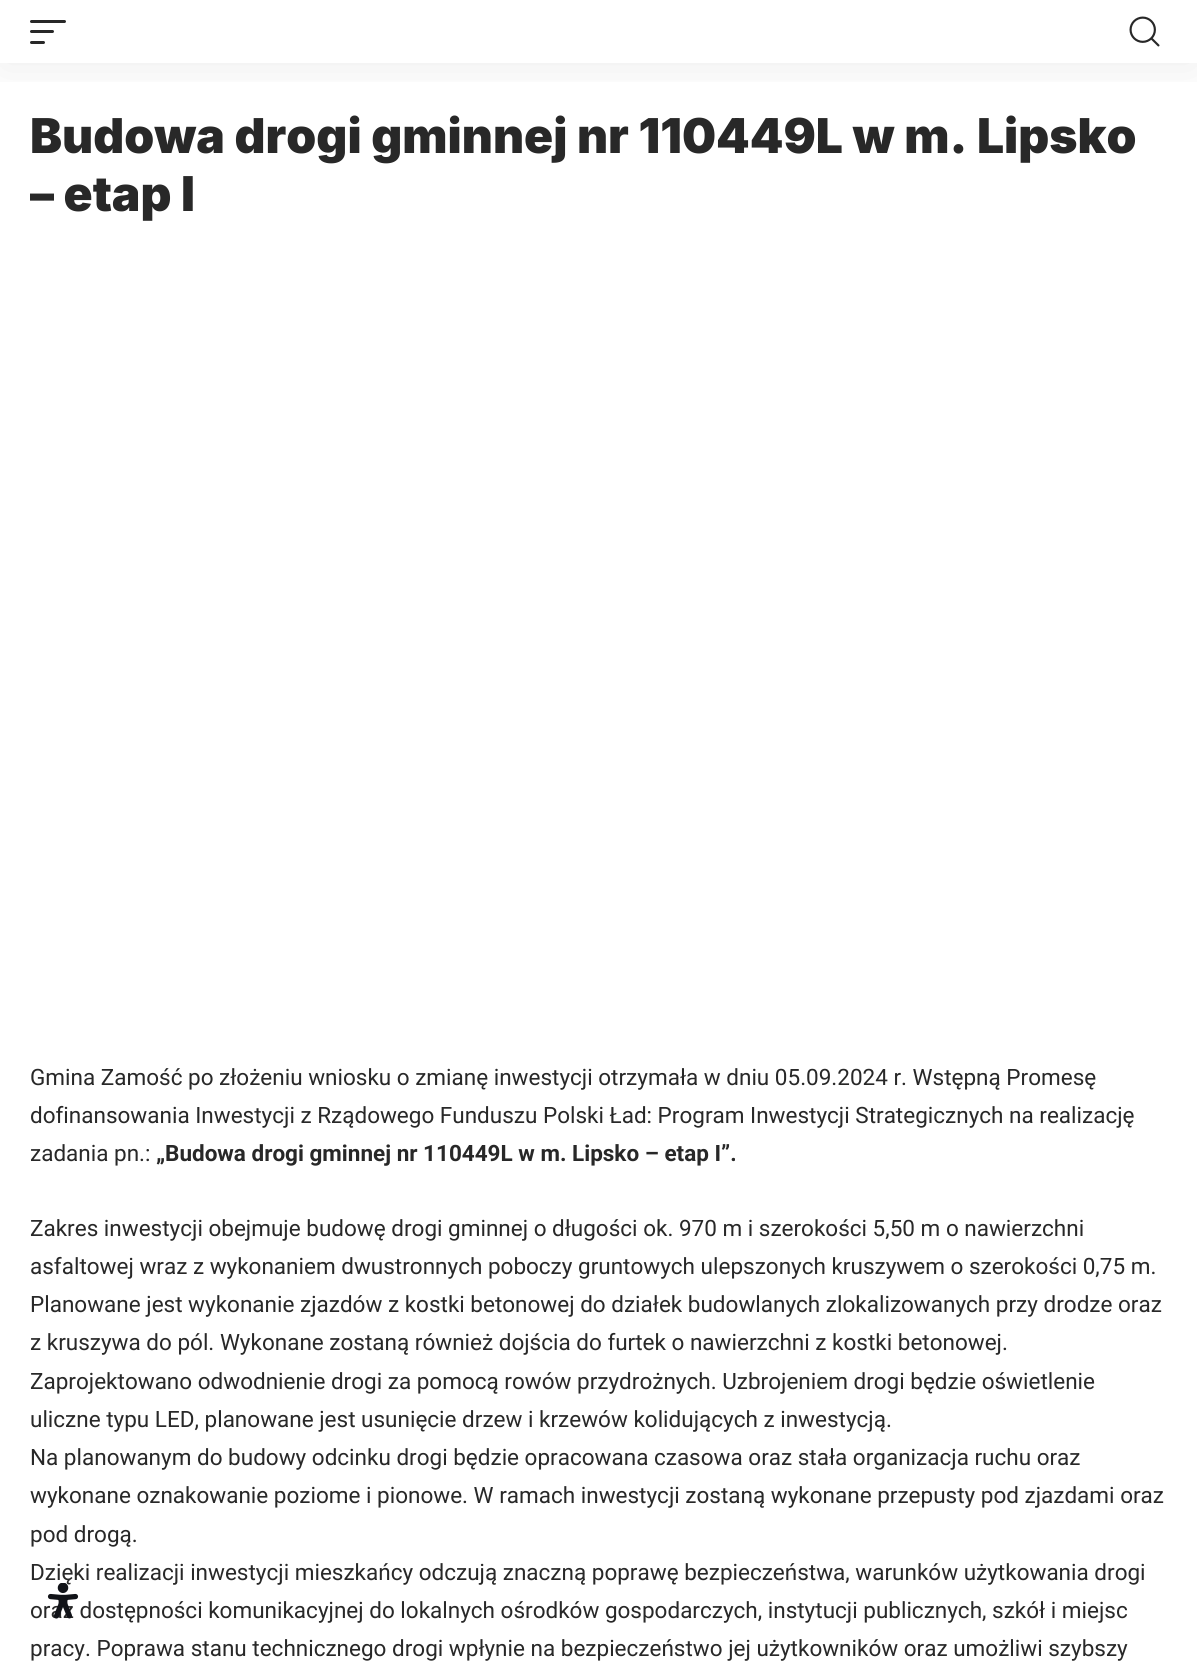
import math
import cairo

surface = cairo.ImageSurface(cairo.FORMAT_RGB24, 1197, 1663)
cr = cairo.Context(surface)
options = cairo.FontOptions()
options.set_hint_metrics(cairo.HINT_METRICS_OFF)
options.set_hint_style(cairo.HINT_STYLE_NONE)
cr.set_font_options(options)
cr.set_miter_limit(4)


def rgb(code):
    cr.set_source_rgb(*(v / 255 for v in bytes.fromhex(code[-6:])))


def rrect(x, y, w, h, r):
    cr.new_sub_path()
    for i, (u, v) in enumerate([(x + w - r, y + h - r), (x + r, y + h - r), (x + r, y + r), (x + w - r, y + r)]):
        cr.arc(u, v, r, i * math.pi / 2, (i + 1) * math.pi / 2)
    cr.close_path()


def soft_shadow(x, y, w, h, r, blur, alpha):
    cr.push_group_with_content(cairo.CONTENT_ALPHA)
    cr.set_operator(cairo.OPERATOR_SOURCE)
    for i in range(15, -16, -2):
        e = blur * i / 6
        if min(w, h) + 2 * e > 0:
            cr.set_source_rgba(0, 0, 0, alpha * math.erfc((i - 1) / 8.5) / 2)
            rrect(x - e, y - e, w + 2 * e, h + 2 * e, max(0, min(r + e + blur * .6, min(w, h) / 2 + e)))
            cr.fill()
    cr.mask(cr.pop_group())


def image(path, x, y, w, h):
    cr.save()
    cr.set_source_surface(cairo.ImageSurface.create_from_png(path), x, y)
    cr.rectangle(x, y, w, h)
    cr.fill()
    cr.restore()


rgb("#ffffff")
cr.paint()
cr.save()
cr.rectangle(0, 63, 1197, 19)
cr.clip()
rgb("#000000")
soft_shadow(0, 6, 1197, 63, 0, 22.5, 0.07)
cr.restore()
rgb("#282828")
rrect(30, 20, 36, 3, 1.5)
cr.fill()
rrect(30, 30, 24, 3, 1.5)
cr.fill()
rrect(30, 41, 15, 3, 1.5)
cr.fill()
image("img/1.png", 1129, 16, 31, 31)
cr.select_font_face("Inter Black")
cr.set_font_size(48)
cr.move_to(30, 153)
cr.show_text("Budowa drogi gminnej nr 110449L w m. Lipsko")
cr.move_to(30, 211)
cr.show_text("– etap I")
cr.select_font_face("Roboto")
cr.set_font_size(22.5)
for x, y, s in [
    (30, 1085, "Gmina Zamość po złożeniu wniosku o zmianę inwestycji otrzymała w dniu 05.09.2024 r. Wstępną Promesę"),
    (30, 1123, "dofinansowania Inwestycji z Rządowego Funduszu Polski Ład: Program Inwestycji Strategicznych na realizację"),
    (30, 1161, "zadania pn.:"),
]:
    cr.move_to(x, y)
    cr.show_text(s)
cr.select_font_face("Roboto", cairo.FONT_SLANT_NORMAL, cairo.FONT_WEIGHT_BOLD)
cr.move_to(156, 1161)
cr.show_text("„Budowa drogi gminnej nr 110449L w m. Lipsko – etap I”.")
cr.select_font_face("Roboto")
for x, y, s in [
    (30, 1236, "Zakres inwestycji obejmuje budowę drogi gminnej o długości ok. 970 m i szerokości 5,50 m o nawierzchni"),
    (30, 1274, "asfaltowej wraz z wykonaniem dwustronnych poboczy gruntowych ulepszonych kruszywem o szerokości 0,75 m."),
    (30, 1312, "Planowane jest wykonanie zjazdów z kostki betonowej do działek budowlanych zlokalizowanych przy drodze oraz"),
    (30, 1350, "z kruszywa do pól. Wykonane zostaną również dojścia do furtek o nawierzchni z kostki betonowej."),
    (30, 1389, "Zaprojektowano odwodnienie drogi za pomocą rowów przydrożnych. Uzbrojeniem drogi będzie oświetlenie"),
    (30, 1427, "uliczne typu LED, planowane jest usunięcie drzew i krzewów kolidujących z inwestycją."),
    (30, 1465, "Na planowanym do budowy odcinku drogi będzie opracowana czasowa oraz stała organizacja ruchu oraz"),
    (30, 1503, "wykonane oznakowanie poziome i pionowe. W ramach inwestycji zostaną wykonane przepusty pod zjazdami oraz"),
    (30, 1542, "pod drogą."),
    (30, 1580, "Dzięki realizacji inwestycji mieszkańcy odczują znaczną poprawę bezpieczeństwa, warunków użytkowania drogi"),
    (30, 1618, "oraz dostępności komunikacyjnej do lokalnych ośrodków gospodarczych, instytucji publicznych, szkół i miejsc"),
    (30, 1656, "pracy. Poprawa stanu technicznego drogi wpłynie na bezpieczeństwo jej użytkowników oraz umożliwi szybszy"),
]:
    cr.move_to(x, y)
    cr.show_text(s)
image("img/2.png", 47, 1583, 32, 36)
surface.write_to_png("page.png")
